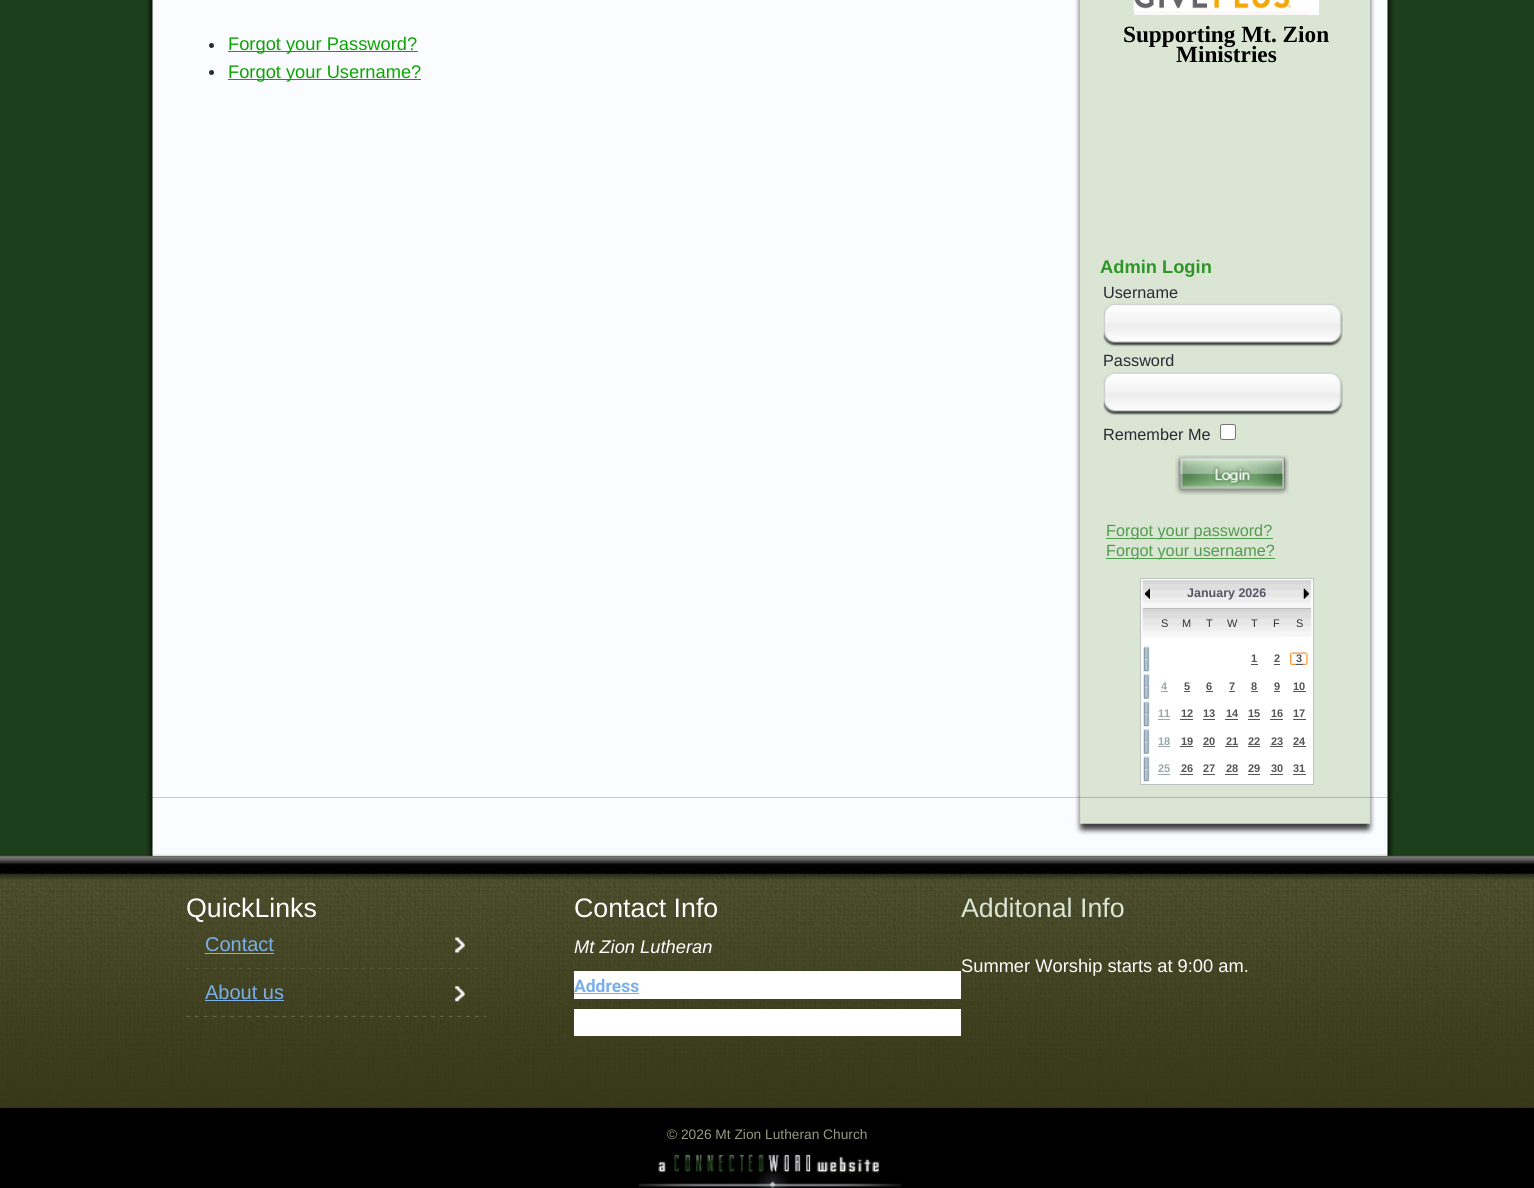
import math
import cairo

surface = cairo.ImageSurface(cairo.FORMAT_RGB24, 1534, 1188)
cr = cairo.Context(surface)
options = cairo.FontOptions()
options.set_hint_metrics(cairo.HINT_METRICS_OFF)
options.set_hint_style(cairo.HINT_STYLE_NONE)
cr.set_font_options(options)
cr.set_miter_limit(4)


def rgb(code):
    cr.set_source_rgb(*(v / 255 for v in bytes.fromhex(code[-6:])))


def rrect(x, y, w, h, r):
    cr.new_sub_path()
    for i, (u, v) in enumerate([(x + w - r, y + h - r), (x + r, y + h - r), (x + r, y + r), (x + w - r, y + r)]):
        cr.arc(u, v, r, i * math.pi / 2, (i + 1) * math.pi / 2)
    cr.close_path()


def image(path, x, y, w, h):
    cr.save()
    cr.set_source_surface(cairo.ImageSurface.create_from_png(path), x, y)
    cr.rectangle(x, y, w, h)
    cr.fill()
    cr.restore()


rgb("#1e3f1c")
cr.paint()
image("img/1.png", 146, 0, 1248, 798)
rgb("#242c36")
cr.arc(211.5, 45.5, 2.5, 0, 2 * math.pi)
cr.fill()
rgb("#09a500")
cr.rectangle(228, 51, 190, 1)
cr.fill()
rgb("#242c36")
cr.arc(211.5, 72.5, 2.5, 0, 2 * math.pi)
cr.fill()
rgb("#09a500")
cr.rectangle(228, 79, 193, 1)
cr.fill()
image("img/2.png", 1133, 0, 159, 11)
for x, y, w, h, color in [
    (1292, 0, 17, 11, "#ffffff"),
    (1309, 0, 10, 15, "#ffffff"),
    (1134, 11, 175, 4, "#fcf8f8"),
]:
    rgb(color)
    cr.rectangle(x, y, w, h)
    cr.fill()
image("img/3.png", 1103, 303, 240, 44)
image("img/4.png", 1103, 372, 240, 44)
rgb("#ffffff")
rrect(1220.5, 424.5, 15, 15, 2)
cr.fill_preserve()
rgb("#767676")
cr.set_line_width(1)
cr.stroke()
image("img/5.png", 1175, 455, 114, 40)
rgb("#529c4e")
cr.rectangle(1106, 538, 167, 1)
cr.fill()
cr.rectangle(1106, 558, 169, 1)
cr.fill()
rgb("#ffffff")
cr.rectangle(1140.5, 578.5, 173, 206)
cr.fill_preserve()
rgb("#bec2c3")
cr.stroke()
image("img/6.png", 1142, 580, 170, 29)
rgb("#b4b4b6")
cr.rectangle(1143, 608, 168, 1)
cr.fill()
image("img/7.png", 1145, 588, 5, 11)
image("img/8.png", 1303, 588, 6, 11)
image("img/9.png", 1142, 608, 170, 29)
image("img/10.png", 1143, 646, 7, 26)
rgb("#555555")
cr.rectangle(1251, 664, 7, 1)
cr.fill()
cr.rectangle(1274, 664, 6, 1)
cr.fill()
image("img/11.png", 1290, 652, 18, 13)
cr.rectangle(1296, 664, 7, 1)
cr.fill()
image("img/12.png", 1143, 673, 7, 26)
for x, y, w, h, color in [
    (1161, 691, 7, 1, "#99aaaa"),
    (1184, 691, 6, 1, "#555555"),
    (1206, 691, 7, 1, "#555555"),
    (1229, 691, 6, 1, "#555555"),
    (1251, 691, 7, 1, "#555555"),
    (1274, 691, 6, 1, "#555555"),
    (1293, 691, 13, 1, "#555555"),
]:
    rgb(color)
    cr.rectangle(x, y, w, h)
    cr.fill()
image("img/10.png", 1143, 701, 7, 26)
for x, y, w, h, color in [
    (1158, 719, 12, 1, "#99aaaa"),
    (1180, 719, 13, 1, "#555555"),
    (1203, 719, 12, 1, "#555555"),
    (1225, 719, 13, 1, "#555555"),
    (1248, 719, 12, 1, "#555555"),
    (1270, 719, 13, 1, "#555555"),
    (1293, 719, 13, 1, "#555555"),
]:
    rgb(color)
    cr.rectangle(x, y, w, h)
    cr.fill()
image("img/12.png", 1143, 728, 7, 26)
for x, y, w, h, color in [
    (1158, 746, 12, 1, "#99aaaa"),
    (1180, 746, 13, 1, "#555555"),
    (1203, 746, 12, 1, "#555555"),
    (1225, 746, 13, 1, "#555555"),
    (1248, 746, 12, 1, "#555555"),
    (1270, 746, 13, 1, "#555555"),
    (1293, 746, 13, 1, "#555555"),
]:
    rgb(color)
    cr.rectangle(x, y, w, h)
    cr.fill()
image("img/10.png", 1143, 756, 7, 26)
for x, y, w, h, color in [
    (1158, 774, 12, 1, "#99aaaa"),
    (1180, 774, 13, 1, "#555555"),
    (1203, 774, 12, 1, "#555555"),
    (1225, 774, 13, 1, "#555555"),
    (1248, 774, 12, 1, "#555555"),
    (1270, 774, 13, 1, "#555555"),
    (1293, 774, 13, 1, "#555555"),
]:
    rgb(color)
    cr.rectangle(x, y, w, h)
    cr.fill()
image("img/13.png", 0, 797, 1534, 59)
rgb("#333515")
cr.rectangle(0, 856, 1534, 252)
cr.fill()
image("img/14.png", 0, 856, 1534, 251)
image("img/15.png", 186, 968, 301, 1)
image("img/16.png", 455, 937, 10, 16)
rgb("#7aafe9")
cr.rectangle(205, 953, 69, 1)
cr.fill()
image("img/17.png", 186, 1015, 301, 2)
image("img/18.png", 455, 986, 10, 16)
for x, y, w, h, color in [
    (205, 1000, 79, 1, "#7aafe9"),
    (574, 971, 387, 28, "#ffffff"),
    (574, 993, 65, 1, "#7aafe9"),
    (574, 1009, 387, 27, "#ffffff"),
    (0, 1108, 1534, 80, "#000000"),
]:
    rgb(color)
    cr.rectangle(x, y, w, h)
    cr.fill()
image("img/19.png", 638, 1150, 264, 38)
cr.select_font_face("Liberation Sans")
cr.set_font_size(18.3)
rgb("#09a500")
cr.move_to(228, 50)
cr.show_text("Forgot your Password?")
cr.move_to(228, 78)
cr.show_text("Forgot your Username?")
cr.select_font_face("Liberation Serif", cairo.FONT_SLANT_NORMAL, cairo.FONT_WEIGHT_BOLD)
cr.set_font_size(23.25)
rgb("#000000")
cr.move_to(1123, 42)
cr.show_text("Supporting Mt. Zion")
cr.move_to(1176, 62)
cr.show_text("Ministries")
cr.select_font_face("Liberation Sans", cairo.FONT_SLANT_NORMAL, cairo.FONT_WEIGHT_BOLD)
cr.set_font_size(18.3)
rgb("#2d9627")
cr.move_to(1100, 273)
cr.show_text("Admin Login")
cr.select_font_face("Liberation Sans")
cr.set_font_size(16.25)
rgb("#242c36")
for x, y, s in [
    (1103, 298, "Username"),
    (1103, 366, "Password"),
    (1103, 440, "Remember Me"),
]:
    cr.move_to(x, y)
    cr.show_text(s)
rgb("#529c4e")
cr.move_to(1106, 536)
cr.show_text("Forgot your password?")
cr.move_to(1106, 556)
cr.show_text("Forgot your username?")
cr.select_font_face("Liberation Sans", cairo.FONT_SLANT_NORMAL, cairo.FONT_WEIGHT_BOLD)
cr.set_font_size(12.5)
rgb("#565666")
cr.move_to(1187, 597)
cr.show_text("January 2026")
cr.select_font_face("Liberation Sans")
cr.set_font_size(11)
rgb("#333333")
for x, y, s in [
    (1161, 627, "S"),
    (1182, 627, "M"),
    (1206, 627, "T"),
    (1227, 627, "W"),
    (1251, 627, "T"),
    (1273, 627, "F"),
    (1296, 627, "S"),
]:
    cr.move_to(x, y)
    cr.show_text(s)
cr.select_font_face("Liberation Sans", cairo.FONT_SLANT_NORMAL, cairo.FONT_WEIGHT_BOLD)
rgb("#555555")
for x, y, s in [
    (1251, 662, "1"),
    (1274, 662, "2"),
    (1296, 662, "3"),
]:
    cr.move_to(x, y)
    cr.show_text(s)
rgb("#99aaaa")
cr.move_to(1161, 690)
cr.show_text("4")
rgb("#555555")
for x, y, s in [
    (1184, 690, "5"),
    (1206, 690, "6"),
    (1229, 690, "7"),
    (1251, 690, "8"),
    (1274, 690, "9"),
    (1293, 690, "10"),
]:
    cr.move_to(x, y)
    cr.show_text(s)
rgb("#99aaaa")
cr.move_to(1158, 717)
cr.show_text("11")
rgb("#555555")
for x, y, s in [
    (1181, 717, "12"),
    (1203, 717, "13"),
    (1226, 717, "14"),
    (1248, 717, "15"),
    (1271, 717, "16"),
    (1293, 717, "17"),
]:
    cr.move_to(x, y)
    cr.show_text(s)
rgb("#99aaaa")
cr.move_to(1158, 745)
cr.show_text("18")
rgb("#555555")
for x, y, s in [
    (1181, 745, "19"),
    (1203, 745, "20"),
    (1226, 745, "21"),
    (1248, 745, "22"),
    (1271, 745, "23"),
    (1293, 745, "24"),
]:
    cr.move_to(x, y)
    cr.show_text(s)
rgb("#99aaaa")
cr.move_to(1158, 772)
cr.show_text("25")
rgb("#555555")
for x, y, s in [
    (1181, 772, "26"),
    (1203, 772, "27"),
    (1226, 772, "28"),
    (1248, 772, "29"),
    (1271, 772, "30"),
    (1293, 772, "31"),
]:
    cr.move_to(x, y)
    cr.show_text(s)
cr.select_font_face("Liberation Sans")
cr.set_font_size(26.75)
rgb("#ffffff")
cr.move_to(186, 917)
cr.show_text("QuickLinks")
cr.move_to(574, 917)
cr.show_text("Contact Info")
rgb("#dbe5d4")
cr.move_to(961, 917)
cr.show_text("Additonal Info")
cr.set_font_size(20)
rgb("#7aafe9")
cr.move_to(205, 951)
cr.show_text("Contact")
cr.move_to(205, 999)
cr.show_text("About us")
cr.select_font_face("Liberation Sans", cairo.FONT_SLANT_ITALIC)
cr.set_font_size(18.3)
rgb("#ffffff")
cr.move_to(574, 953)
cr.show_text("Mt Zion Lutheran")
cr.select_font_face("Roboto", cairo.FONT_SLANT_NORMAL, cairo.FONT_WEIGHT_BOLD)
cr.set_font_size(17.5)
rgb("#7aafe9")
cr.move_to(574, 992)
cr.show_text("Address")
cr.select_font_face("Liberation Sans")
cr.set_font_size(18.3)
rgb("#ffffff")
cr.move_to(961, 972)
cr.show_text("Summer Worship starts at 9:00 am.")
cr.set_font_size(13.75)
rgb("#989984")
cr.move_to(667, 1139)
cr.show_text("© 2026 Mt Zion Lutheran Church")
surface.write_to_png("page.png")
